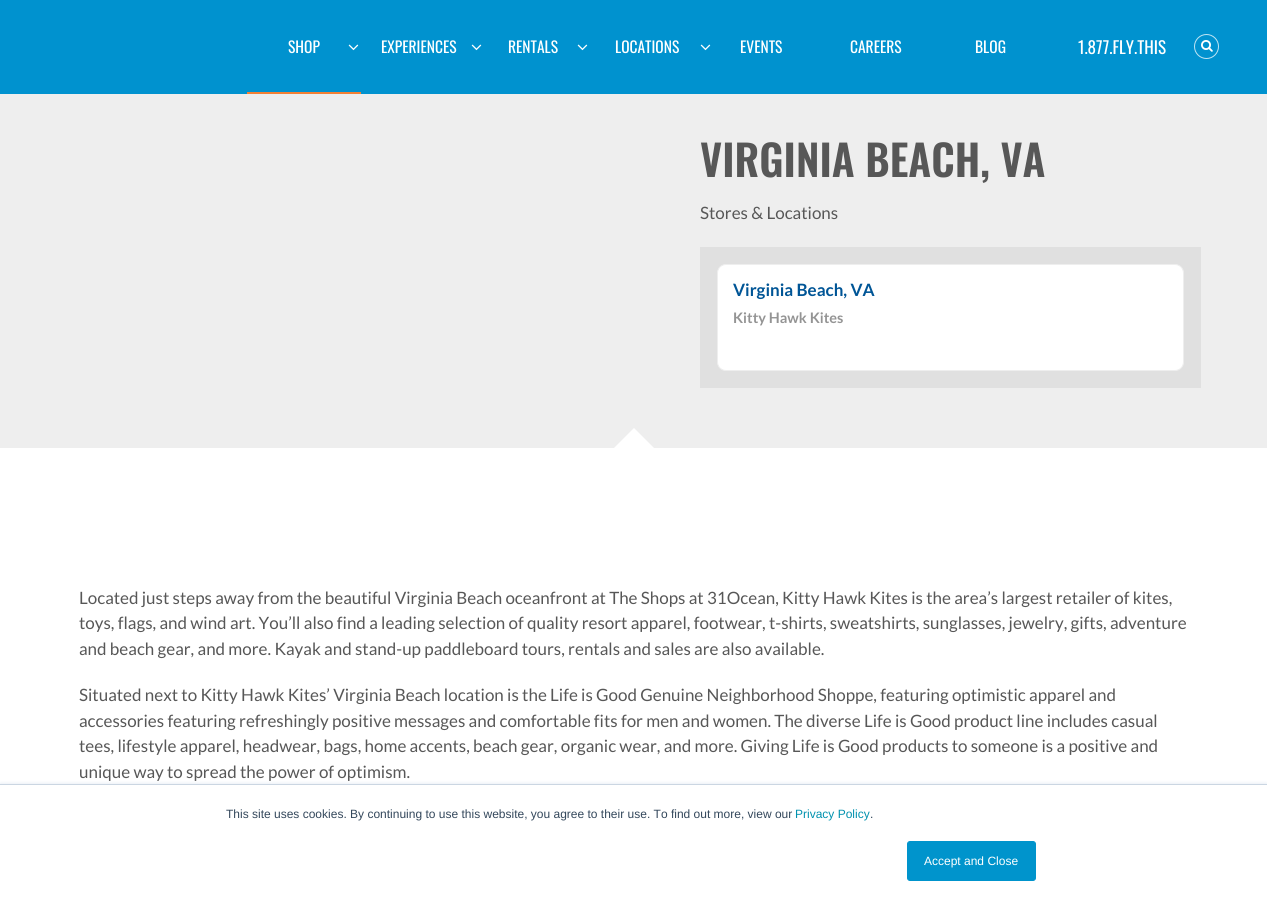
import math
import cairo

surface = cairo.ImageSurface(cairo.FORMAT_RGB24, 1267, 907)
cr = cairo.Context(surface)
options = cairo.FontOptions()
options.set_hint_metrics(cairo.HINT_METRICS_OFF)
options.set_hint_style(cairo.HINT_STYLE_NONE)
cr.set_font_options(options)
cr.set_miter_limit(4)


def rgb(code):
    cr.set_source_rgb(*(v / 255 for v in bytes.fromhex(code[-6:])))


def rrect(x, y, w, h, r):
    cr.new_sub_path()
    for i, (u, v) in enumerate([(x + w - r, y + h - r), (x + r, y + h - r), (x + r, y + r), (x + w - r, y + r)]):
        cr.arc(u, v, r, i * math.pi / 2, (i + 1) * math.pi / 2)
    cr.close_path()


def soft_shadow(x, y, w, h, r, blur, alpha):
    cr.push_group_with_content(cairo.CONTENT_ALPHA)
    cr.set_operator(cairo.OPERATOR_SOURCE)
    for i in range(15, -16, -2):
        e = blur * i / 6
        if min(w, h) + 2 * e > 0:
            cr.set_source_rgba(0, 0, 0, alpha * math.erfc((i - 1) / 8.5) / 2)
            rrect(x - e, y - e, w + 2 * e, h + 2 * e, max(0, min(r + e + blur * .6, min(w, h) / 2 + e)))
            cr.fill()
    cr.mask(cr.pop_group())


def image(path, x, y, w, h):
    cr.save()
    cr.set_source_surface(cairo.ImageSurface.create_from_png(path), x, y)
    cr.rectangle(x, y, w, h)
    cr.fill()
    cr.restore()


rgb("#ffffff")
cr.paint()
rgb("#0092cf")
cr.rectangle(0, 0, 1267, 94)
cr.fill()
rgb("#f38034")
cr.rectangle(247, 92, 114, 2)
cr.fill()
image("img/1.png", 348, 44, 11, 7)
image("img/1.png", 471, 44, 11, 7)
image("img/1.png", 577, 44, 11, 7)
image("img/1.png", 700, 44, 11, 7)
cr.arc(1206.5, 46.5, 12, 0, 2 * math.pi)
rgb("#bfe4f3")
cr.set_line_width(1)
cr.stroke()
image("img/2.png", 1201, 40, 12, 12)
rgb("#eeeeee")
cr.rectangle(0, 94, 1267, 354)
cr.fill()
rgb("#e0e0e0")
cr.rectangle(700, 247, 501, 141)
cr.fill()
rgb("#ffffff")
rrect(717.5, 264.5, 466, 106, 8.5)
cr.fill_preserve()
rgb("#eeeeee")
cr.stroke()
rgb("#ffffff")
cr.new_path()
cr.move_to(654, 448)
cr.line_to(614, 448)
cr.line_to(634, 428)
cr.close_path()
cr.fill()
cr.save()
cr.rectangle(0, 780, 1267, 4)
cr.clip()
rgb("#eaf0f6")
soft_shadow(0, 783, 1267, 123, 0, 1.5, 1)
cr.restore()
rgb("#cbd6e2")
cr.rectangle(0, 784, 1267, 1)
cr.fill()
rgb("#0094cc")
rrect(907.5, 841.5, 128, 39, 2.5)
cr.fill_preserve()
cr.stroke()
cr.select_font_face("Oswald")
cr.set_font_size(15.5)
rgb("#ffffff")
for x, y, s in [
    (288, 53, "SHOP"),
    (381, 53, "EXPERIENCES"),
    (508, 53, "RENTALS"),
    (615, 53, "LOCATIONS"),
    (740, 53, "EVENTS"),
    (850, 53, "CAREERS"),
    (975, 53, "BLOG"),
]:
    cr.move_to(x, y)
    cr.show_text(s)
cr.set_font_size(17)
cr.move_to(1078, 54)
cr.show_text("1.877.FLY.THIS")
cr.select_font_face("Oswald SemiBold")
cr.set_font_size(42.5)
rgb("#575757")
cr.move_to(700, 177)
cr.show_text("VIRGINIA BEACH, VA")
cr.select_font_face("Lato")
cr.set_font_size(17)
cr.move_to(700, 219)
cr.show_text("Stores & Locations")
cr.select_font_face("Lato", cairo.FONT_SLANT_NORMAL, cairo.FONT_WEIGHT_BOLD)
rgb("#005596")
cr.move_to(733, 296)
cr.show_text("Virginia Beach, VA")
cr.set_font_size(14.5)
rgb("#949494")
cr.move_to(733, 323)
cr.show_text("Kitty Hawk Kites")
cr.select_font_face("Lato")
cr.set_font_size(17)
rgb("#575757")
for x, y, s in [
    (79, 604, "Located just steps away from the beautiful Virginia Beach oceanfront at The Shops at 31Ocean, Kitty Hawk Kites is the area’s largest retailer of kites,"),
    (79, 629, "toys, flags, and wind art. You’ll also find a leading selection of quality resort apparel, footwear, t-shirts, sweatshirts, sunglasses, jewelry, gifts, adventure"),
    (79, 655, "and beach gear, and more. Kayak and stand-up paddleboard tours, rentals and sales are also available."),
    (79, 701, "Situated next to Kitty Hawk Kites’ Virginia Beach location is the Life is Good Genuine Neighborhood Shoppe, featuring optimistic apparel and"),
    (79, 727, "accessories featuring refreshingly positive messages and comfortable fits for men and women. The diverse Life is Good product line includes casual"),
    (79, 752, "tees, lifestyle apparel, headwear, bags, home accents, beach gear, organic wear, and more. Giving Life is Good products to someone is a positive and"),
    (79, 778, "unique way to spread the power of optimism."),
]:
    cr.move_to(x, y)
    cr.show_text(s)
cr.select_font_face("Liberation Sans")
cr.set_font_size(12)
rgb("#33475b")
cr.move_to(226, 818)
cr.show_text("This site uses cookies. By continuing to use this website, you agree to their use. To find out more, view our")
rgb("#0091ae")
cr.move_to(795, 818)
cr.show_text("Privacy Policy")
rgb("#33475b")
cr.move_to(870, 818)
cr.show_text(".")
rgb("#ffffff")
cr.move_to(924, 865)
cr.show_text("Accept and Close")
surface.write_to_png("page.png")
